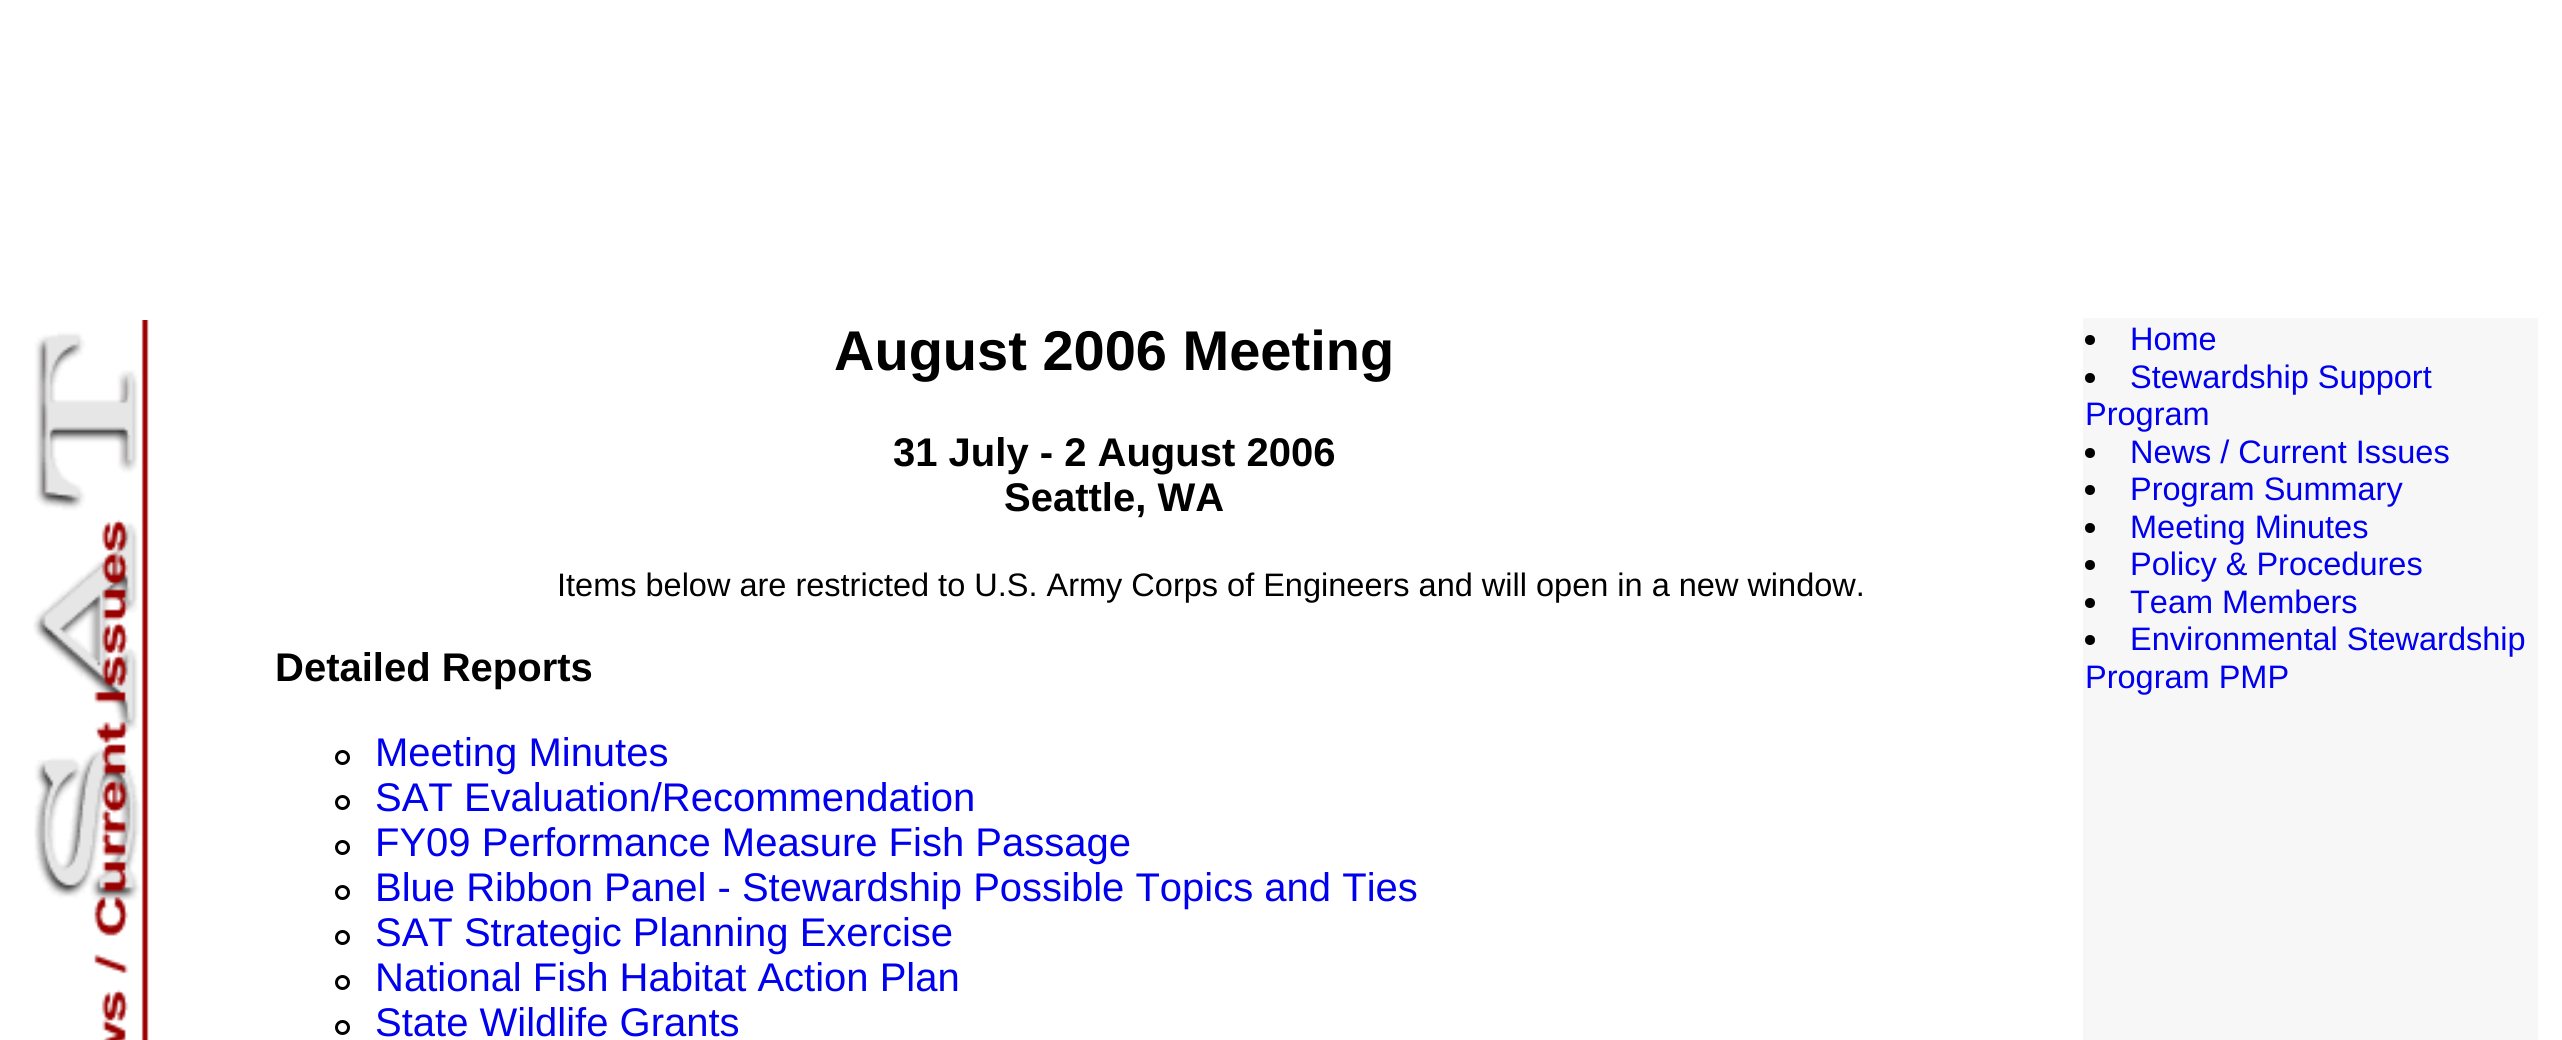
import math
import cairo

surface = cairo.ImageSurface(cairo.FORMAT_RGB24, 2562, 1040)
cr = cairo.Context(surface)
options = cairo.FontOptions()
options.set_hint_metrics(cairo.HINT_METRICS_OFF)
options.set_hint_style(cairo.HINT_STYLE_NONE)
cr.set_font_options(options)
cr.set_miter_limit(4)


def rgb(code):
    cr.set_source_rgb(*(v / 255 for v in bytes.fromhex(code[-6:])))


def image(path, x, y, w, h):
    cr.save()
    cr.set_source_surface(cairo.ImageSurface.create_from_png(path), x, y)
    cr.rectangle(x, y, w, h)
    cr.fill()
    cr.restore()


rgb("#ffffff")
cr.paint()
image("img/1.png", 33, 320, 116, 720)
cr.arc(342.5, 757.5, 6, 0, 2 * math.pi)
rgb("#000000")
cr.set_line_width(3)
cr.stroke()
cr.arc(342.5, 802.5, 6, 0, 2 * math.pi)
cr.stroke()
cr.arc(342.5, 847.5, 6, 0, 2 * math.pi)
cr.stroke()
cr.arc(342.5, 892.5, 6, 0, 2 * math.pi)
cr.stroke()
cr.arc(342.5, 937.5, 6, 0, 2 * math.pi)
cr.stroke()
cr.arc(342.5, 982.5, 6, 0, 2 * math.pi)
cr.stroke()
cr.arc(342.5, 1027.5, 6, 0, 2 * math.pi)
cr.stroke()
rgb("#f7f7f7")
cr.rectangle(2083, 318, 455, 722)
cr.fill()
rgb("#000000")
cr.arc(2090, 340, 5, 0, 2 * math.pi)
cr.fill()
cr.arc(2090, 378, 5, 0, 2 * math.pi)
cr.fill()
cr.arc(2090, 453, 5, 0, 2 * math.pi)
cr.fill()
cr.arc(2090, 490, 5, 0, 2 * math.pi)
cr.fill()
cr.arc(2090, 528, 5, 0, 2 * math.pi)
cr.fill()
cr.arc(2090, 565, 5, 0, 2 * math.pi)
cr.fill()
cr.arc(2090, 603, 5, 0, 2 * math.pi)
cr.fill()
cr.arc(2090, 640, 5, 0, 2 * math.pi)
cr.fill()
cr.select_font_face("Liberation Sans", cairo.FONT_SLANT_NORMAL, cairo.FONT_WEIGHT_BOLD)
cr.set_font_size(56)
cr.move_to(834, 370)
cr.show_text("August 2006 Meeting")
cr.set_font_size(40)
cr.move_to(893, 466)
cr.show_text("31 July - 2 August 2006")
cr.move_to(1004, 511)
cr.show_text("Seattle, WA")
cr.select_font_face("Liberation Sans")
cr.set_font_size(32.5)
cr.move_to(557, 596)
cr.show_text("Items below are restricted to U.S. Army Corps of Engineers and will open in a new window.")
cr.select_font_face("Liberation Sans", cairo.FONT_SLANT_NORMAL, cairo.FONT_WEIGHT_BOLD)
cr.set_font_size(40)
cr.move_to(275, 681)
cr.show_text("Detailed Reports")
cr.select_font_face("Liberation Sans")
rgb("#0000ee")
for x, y, s in [
    (375, 766, "Meeting Minutes"),
    (375, 811, "SAT Evaluation/Recommendation"),
    (375, 856, "FY09 Performance Measure Fish Passage"),
    (375, 901, "Blue Ribbon Panel - Stewardship Possible Topics and Ties"),
    (375, 946, "SAT Strategic Planning Exercise"),
    (375, 991, "National Fish Habitat Action Plan"),
    (375, 1036, "State Wildlife Grants"),
]:
    cr.move_to(x, y)
    cr.show_text(s)
cr.set_font_size(32.5)
for x, y, s in [
    (2130, 350, "Home"),
    (2130, 388, "Stewardship Support"),
    (2085, 425, "Program"),
    (2130, 463, "News / Current Issues"),
    (2130, 500, "Program Summary"),
    (2130, 538, "Meeting Minutes"),
    (2130, 575, "Policy & Procedures"),
    (2130, 613, "Team Members"),
    (2130, 650, "Environmental Stewardship"),
    (2085, 688, "Program PMP"),
]:
    cr.move_to(x, y)
    cr.show_text(s)
surface.write_to_png("page.png")
